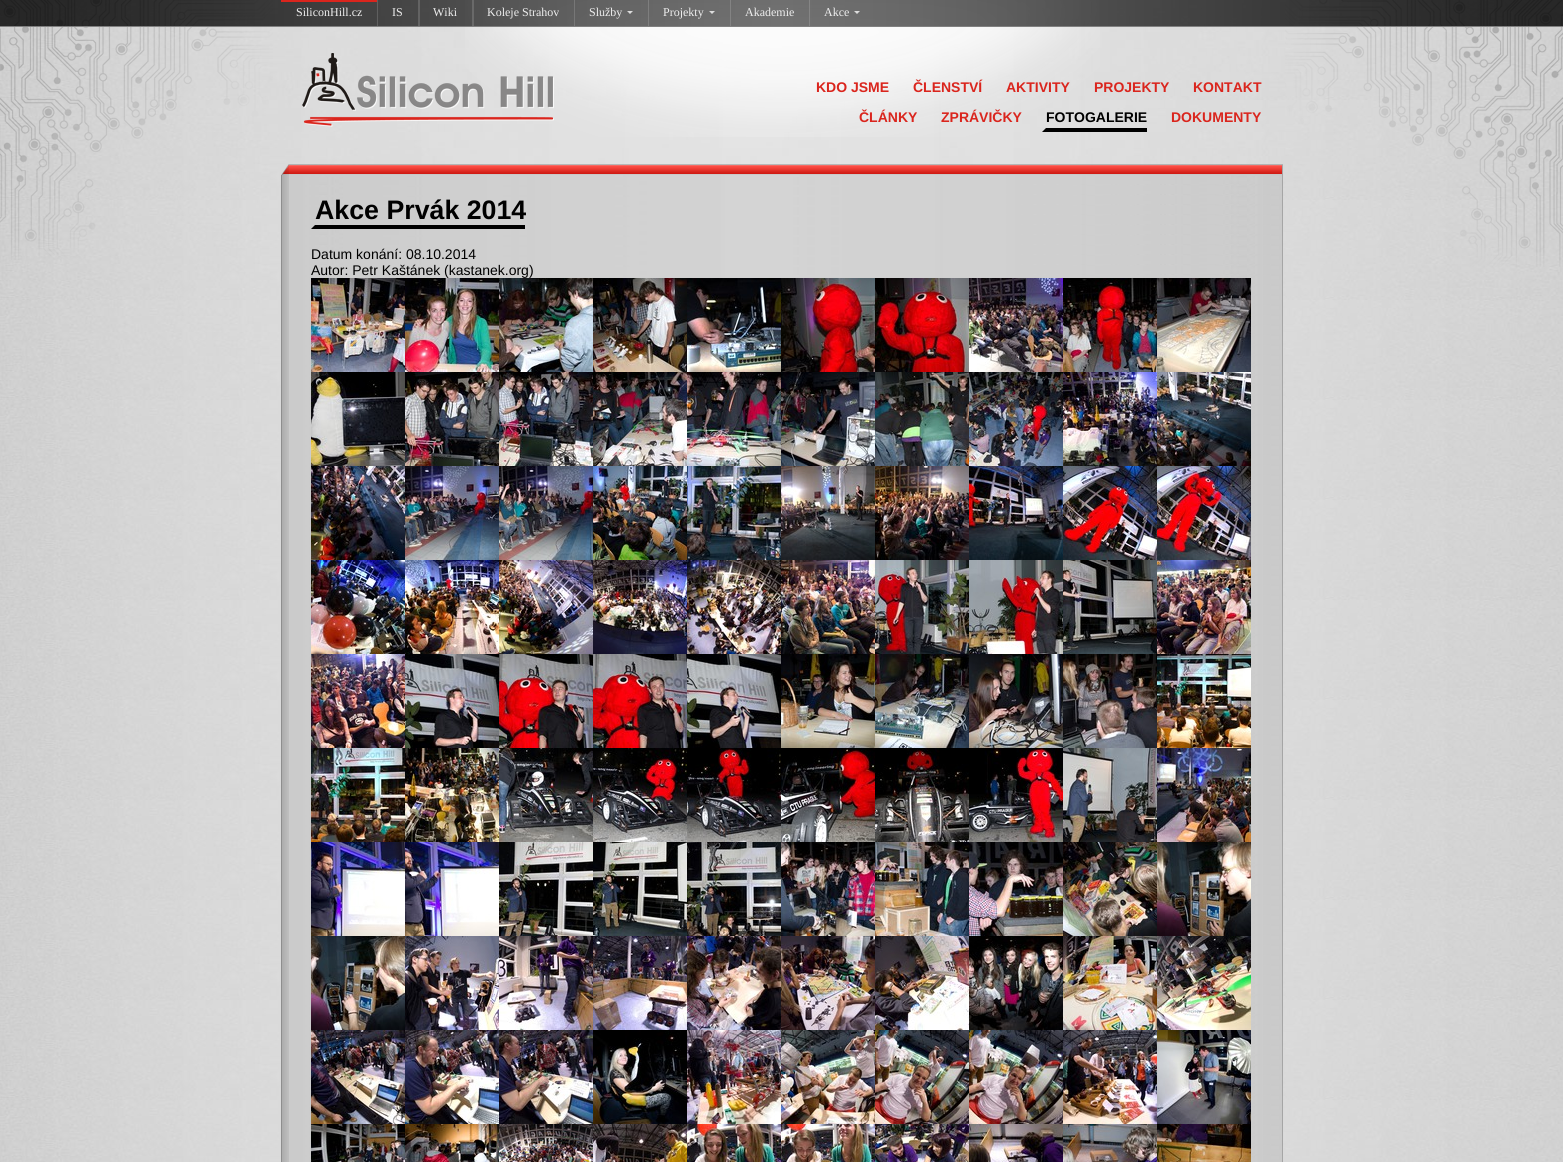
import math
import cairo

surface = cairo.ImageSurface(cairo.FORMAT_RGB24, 1563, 1162)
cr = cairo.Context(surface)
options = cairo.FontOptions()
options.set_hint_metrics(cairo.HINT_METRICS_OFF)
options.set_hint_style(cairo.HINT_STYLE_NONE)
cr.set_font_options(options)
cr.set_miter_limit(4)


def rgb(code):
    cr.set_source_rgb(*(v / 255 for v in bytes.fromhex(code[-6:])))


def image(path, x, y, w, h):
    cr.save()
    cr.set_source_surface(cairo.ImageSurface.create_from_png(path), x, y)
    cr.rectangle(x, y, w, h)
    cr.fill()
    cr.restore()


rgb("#ffffff")
cr.paint()
image("img/1.png", 0, 0, 1563, 1162)
image("img/2.png", 0, 0, 273, 260)
image("img/3.png", 465, 0, 635, 137)
image("img/4.png", 1285, 0, 278, 267)
image("img/5.png", 0, 0, 1563, 26)
for x, y, w, h, color in [
    (0, 26, 1563, 1, "#808080"),
    (281, 0, 96, 2, "#da251d"),
    (377, 0, 1, 26, "#5f5f5f"),
    (418, 0, 2, 26, "#636363"),
    (472, 0, 2, 26, "#696969"),
    (574, 0, 1, 26, "#777777"),
]:
    rgb(color)
    cr.rectangle(x, y, w, h)
    cr.fill()
rgb("#dddddd")
cr.new_path()
cr.move_to(627, 11)
cr.line_to(633, 11)
cr.line_to(630, 14)
cr.close_path()
cr.fill()
rgb("#7e7e7e")
cr.rectangle(648, 0, 1, 26)
cr.fill()
rgb("#dddddd")
cr.new_path()
cr.move_to(709, 11)
cr.line_to(715, 11)
cr.line_to(712, 14)
cr.close_path()
cr.fill()
rgb("#838383")
cr.rectangle(730, 0, 1, 26)
cr.fill()
rgb("#858585")
cr.rectangle(809, 0, 1, 26)
cr.fill()
rgb("#dddddd")
cr.new_path()
cr.move_to(854, 11)
cr.line_to(860, 11)
cr.line_to(857, 14)
cr.close_path()
cr.fill()
image("img/6.png", 302, 53, 252, 74)
rgb("#000000")
cr.new_path()
cr.move_to(1147, 132)
cr.line_to(1042, 132)
cr.line_to(1046, 128)
cr.line_to(1147, 128)
cr.close_path()
cr.fill()
image("img/7.png", 281, 164, 1002, 11)
image("img/8.png", 281, 175, 1002, 987)
cr.new_path()
cr.move_to(525, 229)
cr.line_to(311, 229)
cr.line_to(315, 225)
cr.line_to(525, 225)
cr.close_path()
cr.fill()
image("img/9.png", 311, 278, 94, 94)
image("img/10.png", 405, 278, 94, 94)
image("img/11.png", 499, 278, 94, 94)
image("img/12.png", 593, 278, 94, 94)
image("img/13.png", 687, 278, 94, 94)
image("img/14.png", 781, 278, 94, 94)
image("img/15.png", 875, 278, 94, 94)
image("img/16.png", 969, 278, 94, 94)
image("img/17.png", 1063, 278, 94, 94)
image("img/18.png", 1157, 278, 94, 94)
image("img/19.png", 311, 372, 94, 94)
image("img/20.png", 405, 372, 94, 94)
image("img/21.png", 499, 372, 94, 94)
image("img/22.png", 593, 372, 94, 94)
image("img/23.png", 687, 372, 94, 94)
image("img/24.png", 781, 372, 94, 94)
image("img/25.png", 875, 372, 94, 94)
image("img/26.png", 969, 372, 94, 94)
image("img/27.png", 1063, 372, 94, 94)
image("img/28.png", 1157, 372, 94, 94)
image("img/29.png", 311, 466, 94, 94)
image("img/30.png", 405, 466, 94, 94)
image("img/31.png", 499, 466, 94, 94)
image("img/32.png", 593, 466, 94, 94)
image("img/33.png", 687, 466, 94, 94)
image("img/34.png", 781, 466, 94, 94)
image("img/35.png", 875, 466, 94, 94)
image("img/36.png", 969, 466, 94, 94)
image("img/37.png", 1063, 466, 94, 94)
image("img/38.png", 1157, 466, 94, 94)
image("img/39.png", 311, 560, 94, 94)
image("img/40.png", 405, 560, 94, 94)
image("img/41.png", 499, 560, 94, 94)
image("img/42.png", 593, 560, 94, 94)
image("img/43.png", 687, 560, 94, 94)
image("img/44.png", 781, 560, 94, 94)
image("img/45.png", 875, 560, 94, 94)
image("img/46.png", 969, 560, 94, 94)
image("img/47.png", 1063, 560, 94, 94)
image("img/48.png", 1157, 560, 94, 94)
image("img/49.png", 311, 654, 94, 94)
image("img/50.png", 405, 654, 94, 94)
image("img/51.png", 499, 654, 94, 94)
image("img/52.png", 593, 654, 94, 94)
image("img/53.png", 687, 654, 94, 94)
image("img/54.png", 781, 654, 94, 94)
image("img/55.png", 875, 654, 94, 94)
image("img/56.png", 969, 654, 94, 94)
image("img/57.png", 1063, 654, 94, 94)
image("img/58.png", 1157, 654, 94, 94)
image("img/59.png", 311, 748, 94, 94)
image("img/60.png", 405, 748, 94, 94)
image("img/61.png", 499, 748, 94, 94)
image("img/62.png", 593, 748, 94, 94)
image("img/63.png", 687, 748, 94, 94)
image("img/64.png", 781, 748, 94, 94)
image("img/65.png", 875, 748, 94, 94)
image("img/66.png", 969, 748, 94, 94)
image("img/67.png", 1063, 748, 94, 94)
image("img/68.png", 1157, 748, 94, 94)
image("img/69.png", 311, 842, 94, 94)
image("img/70.png", 405, 842, 94, 94)
image("img/71.png", 499, 842, 94, 94)
image("img/72.png", 593, 842, 94, 94)
image("img/73.png", 687, 842, 94, 94)
image("img/74.png", 781, 842, 94, 94)
image("img/75.png", 875, 842, 94, 94)
image("img/76.png", 969, 842, 94, 94)
image("img/77.png", 1063, 842, 94, 94)
image("img/78.png", 1157, 842, 94, 94)
image("img/79.png", 311, 936, 94, 94)
image("img/80.png", 405, 936, 94, 94)
image("img/81.png", 499, 936, 94, 94)
image("img/82.png", 593, 936, 94, 94)
image("img/83.png", 687, 936, 94, 94)
image("img/84.png", 781, 936, 94, 94)
image("img/85.png", 875, 936, 94, 94)
image("img/86.png", 969, 936, 94, 94)
image("img/87.png", 1063, 936, 94, 94)
image("img/88.png", 1157, 936, 94, 94)
image("img/89.png", 311, 1030, 94, 94)
image("img/90.png", 405, 1030, 94, 94)
image("img/91.png", 499, 1030, 94, 94)
image("img/92.png", 593, 1030, 94, 94)
image("img/93.png", 687, 1030, 94, 94)
image("img/94.png", 781, 1030, 94, 94)
image("img/95.png", 875, 1030, 94, 94)
image("img/96.png", 969, 1030, 94, 94)
image("img/97.png", 1063, 1030, 94, 94)
image("img/98.png", 1157, 1030, 94, 94)
image("img/99.png", 311, 1124, 94, 38)
image("img/100.png", 405, 1124, 94, 38)
image("img/101.png", 499, 1124, 94, 38)
image("img/102.png", 593, 1124, 94, 38)
image("img/103.png", 687, 1124, 94, 38)
image("img/104.png", 781, 1124, 94, 38)
image("img/105.png", 875, 1124, 94, 38)
image("img/106.png", 969, 1124, 94, 38)
image("img/107.png", 1063, 1124, 94, 38)
image("img/108.png", 1157, 1124, 94, 38)
cr.select_font_face("Liberation Serif")
cr.set_font_size(12)
rgb("#eeeeee")
for x, y, s in [
    (296, 16, "SiliconHill.cz"),
    (392, 16, "IS"),
    (433, 16, "Wiki"),
    (487, 16, "Koleje Strahov"),
    (589, 16, "Služby"),
    (663, 16, "Projekty"),
    (745, 16, "Akademie"),
    (824, 16, "Akce"),
]:
    cr.move_to(x, y)
    cr.show_text(s)
cr.select_font_face("Liberation Sans", cairo.FONT_SLANT_NORMAL, cairo.FONT_WEIGHT_BOLD)
cr.set_font_size(14)
rgb("#da251d")
for x, y, s in [
    (816, 92, "KDO JSME"),
    (913, 92, "ČLENSTVÍ"),
    (1006, 92, "AKTIVITY"),
    (1094, 92, "PROJEKTY"),
    (1193, 92, "KONTAKT"),
    (859, 122, "ČLÁNKY"),
    (941, 122, "ZPRÁVIČKY"),
]:
    cr.move_to(x, y)
    cr.show_text(s)
rgb("#000000")
cr.move_to(1046, 122)
cr.show_text("FOTOGALERIE")
rgb("#da251d")
cr.move_to(1171, 122)
cr.show_text("DOKUMENTY")
cr.set_font_size(26.75)
rgb("#000000")
cr.move_to(315, 219)
cr.show_text("Akce Prvák 2014")
cr.select_font_face("Liberation Sans")
cr.set_font_size(14)
cr.move_to(311, 259)
cr.show_text("Datum konání: 08.10.2014")
cr.move_to(311, 275)
cr.show_text("Autor: Petr Kaštánek (kastanek.org)")
surface.write_to_png("page.png")
